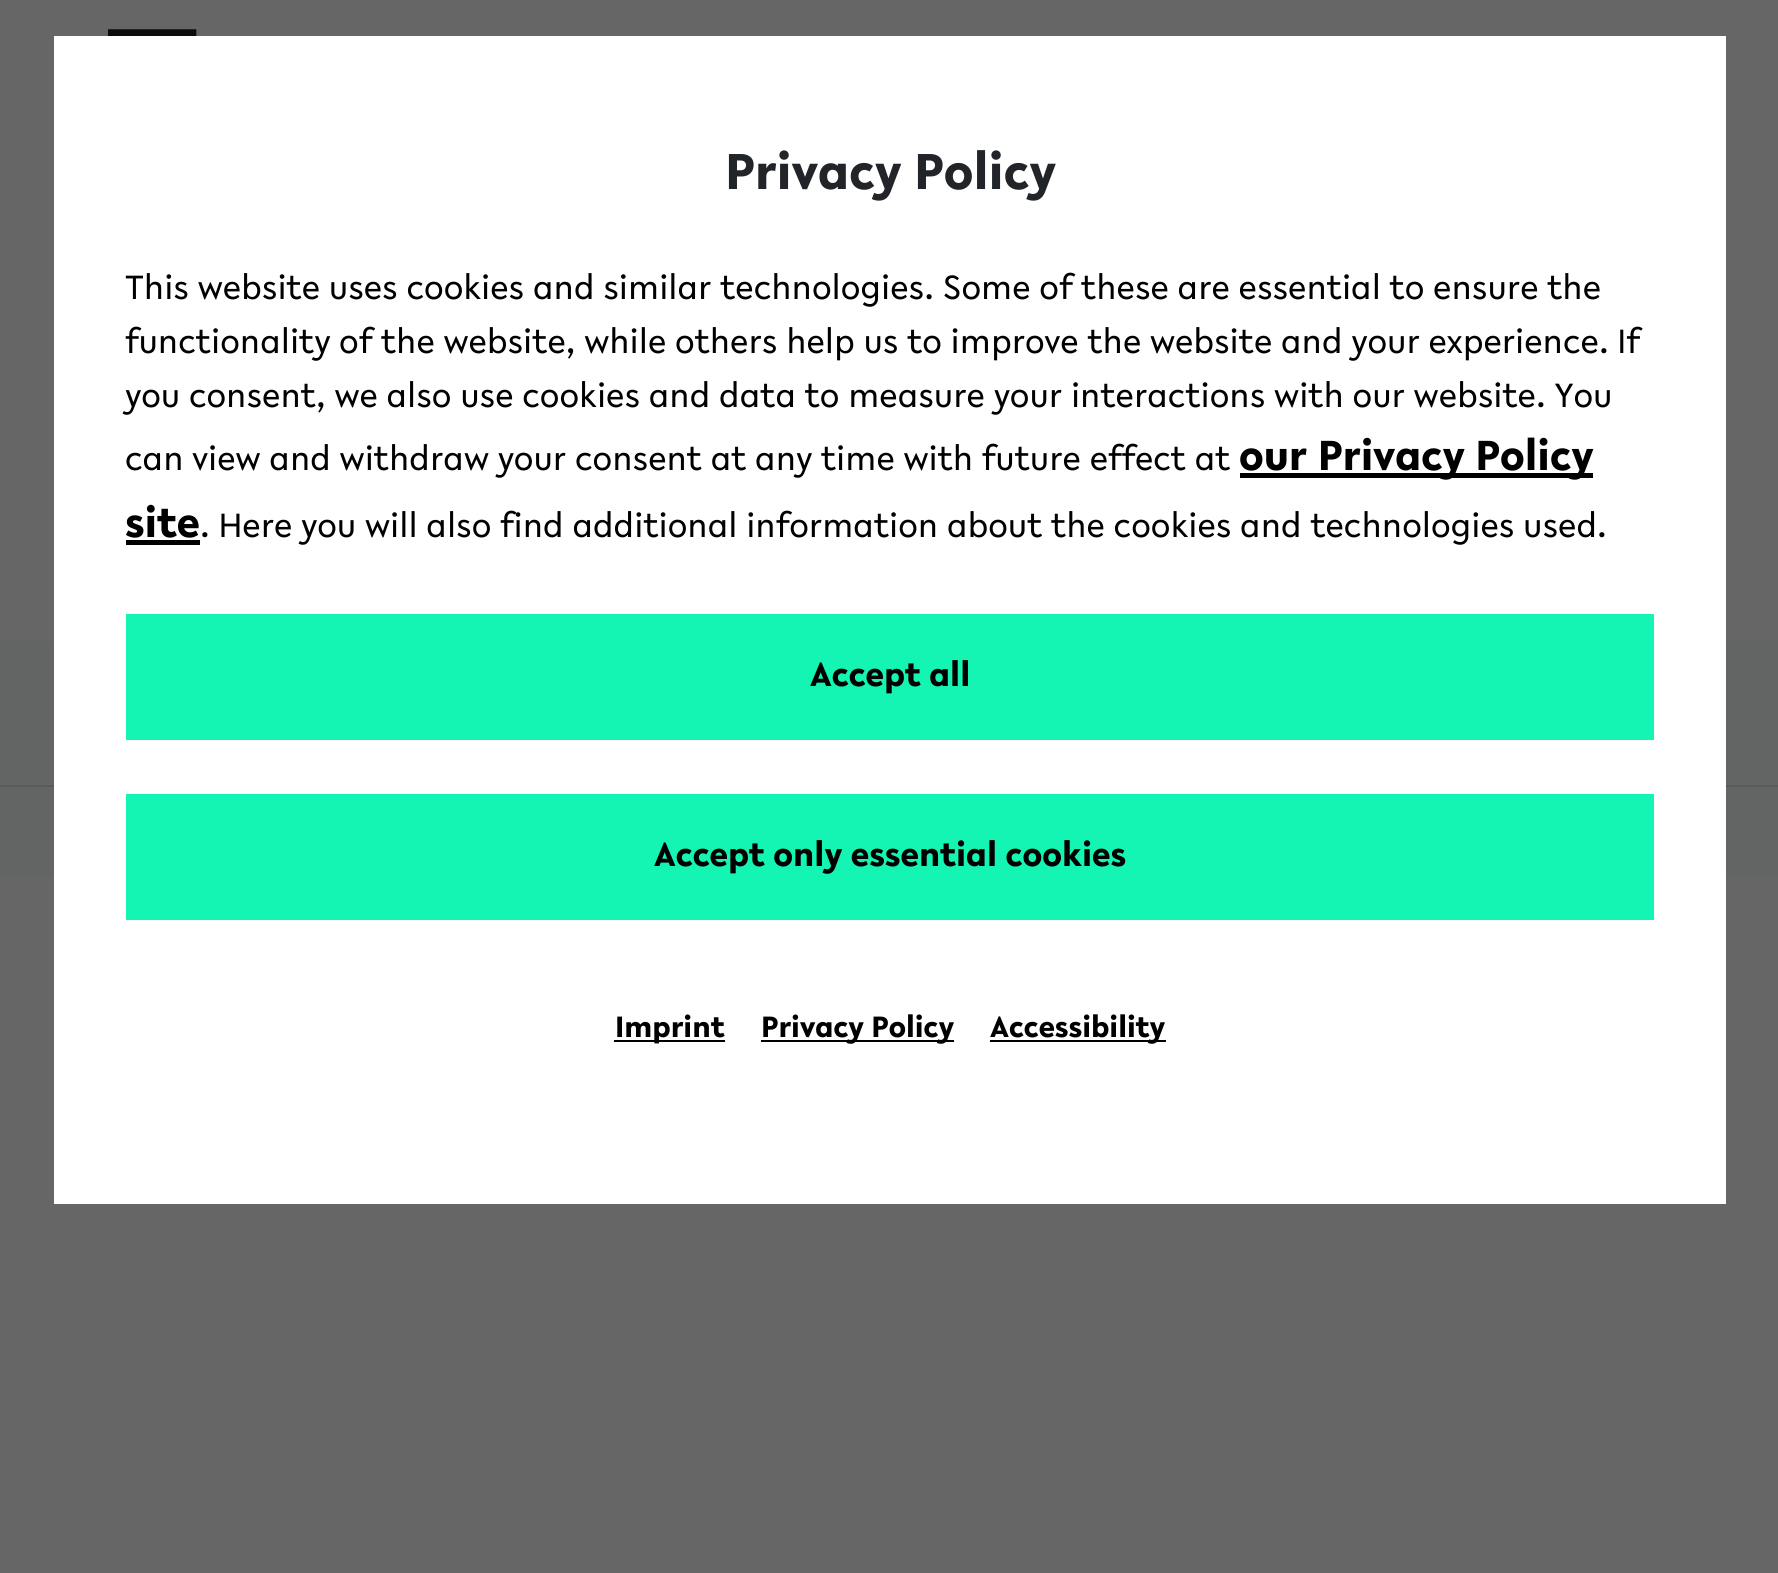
import math
import cairo

surface = cairo.ImageSurface(cairo.FORMAT_RGB24, 1778, 1573)
cr = cairo.Context(surface)
options = cairo.FontOptions()
options.set_hint_metrics(cairo.HINT_METRICS_OFF)
options.set_hint_style(cairo.HINT_STYLE_NONE)
cr.set_font_options(options)
cr.set_miter_limit(4)


def rgb(code):
    cr.set_source_rgb(*(v / 255 for v in bytes.fromhex(code[-6:])))


def image(path, x, y, w, h):
    cr.save()
    cr.set_source_surface(cairo.ImageSurface.create_from_png(path), x, y)
    cr.rectangle(x, y, w, h)
    cr.fill()
    cr.restore()


rgb("#666666")
cr.paint()
image("img/1.png", 108, 29, 89, 7)
for x, y, w, h, color in [
    (0, 641, 1778, 144, "#636464"),
    (0, 787, 1778, 91, "#636464"),
    (0, 785, 1778, 2, "#595a5c"),
    (54, 36, 1672, 1168, "#ffffff"),
    (1240, 473, 353, 5, "#000000"),
    (126, 540, 74, 5, "#000000"),
    (126, 614, 1528, 126, "#14f5b4"),
    (126, 794, 1528, 126, "#14f5b4"),
    (614, 1040, 111, 2, "#000000"),
    (761, 1040, 193, 2, "#000000"),
    (990, 1040, 176, 2, "#000000"),
]:
    rgb(color)
    cr.rectangle(x, y, w, h)
    cr.fill()
cr.select_font_face("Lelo", cairo.FONT_SLANT_NORMAL, cairo.FONT_WEIGHT_BOLD)
cr.set_font_size(54)
rgb("#212529")
cr.move_to(725, 189)
cr.show_text("Privacy Policy")
cr.select_font_face("Lelo")
cr.set_font_size(36)
rgb("#000000")
for x, y, s in [
    (125, 299, "This website uses cookies and similar technologies. Some of these are essential to ensure the"),
    (125, 353, "functionality of the website, while others help us to improve the website and your experience. If"),
    (125, 407, "you consent, we also use cookies and data to measure your interactions with our website. You"),
    (125, 470, "can view and withdraw your consent at any time with future effect at"),
]:
    cr.move_to(x, y)
    cr.show_text(s)
cr.select_font_face("Lelo", cairo.FONT_SLANT_NORMAL, cairo.FONT_WEIGHT_BOLD)
cr.set_font_size(45)
cr.move_to(1239, 470)
cr.show_text("our Privacy Policy")
cr.move_to(125, 537)
cr.show_text("site")
cr.select_font_face("Lelo")
cr.set_font_size(36)
cr.move_to(200, 537)
cr.show_text(". Here you will also find additional information about the cookies and technologies used.")
cr.select_font_face("Lelo", cairo.FONT_SLANT_NORMAL, cairo.FONT_WEIGHT_BOLD)
cr.move_to(810, 686)
cr.show_text("Accept all")
cr.move_to(654, 866)
cr.show_text("Accept only essential cookies")
cr.set_font_size(31.5)
for x, y, s in [
    (615, 1037, "Imprint"),
    (761, 1037, "Privacy Policy"),
    (990, 1037, "Accessibility"),
]:
    cr.move_to(x, y)
    cr.show_text(s)
surface.write_to_png("page.png")
